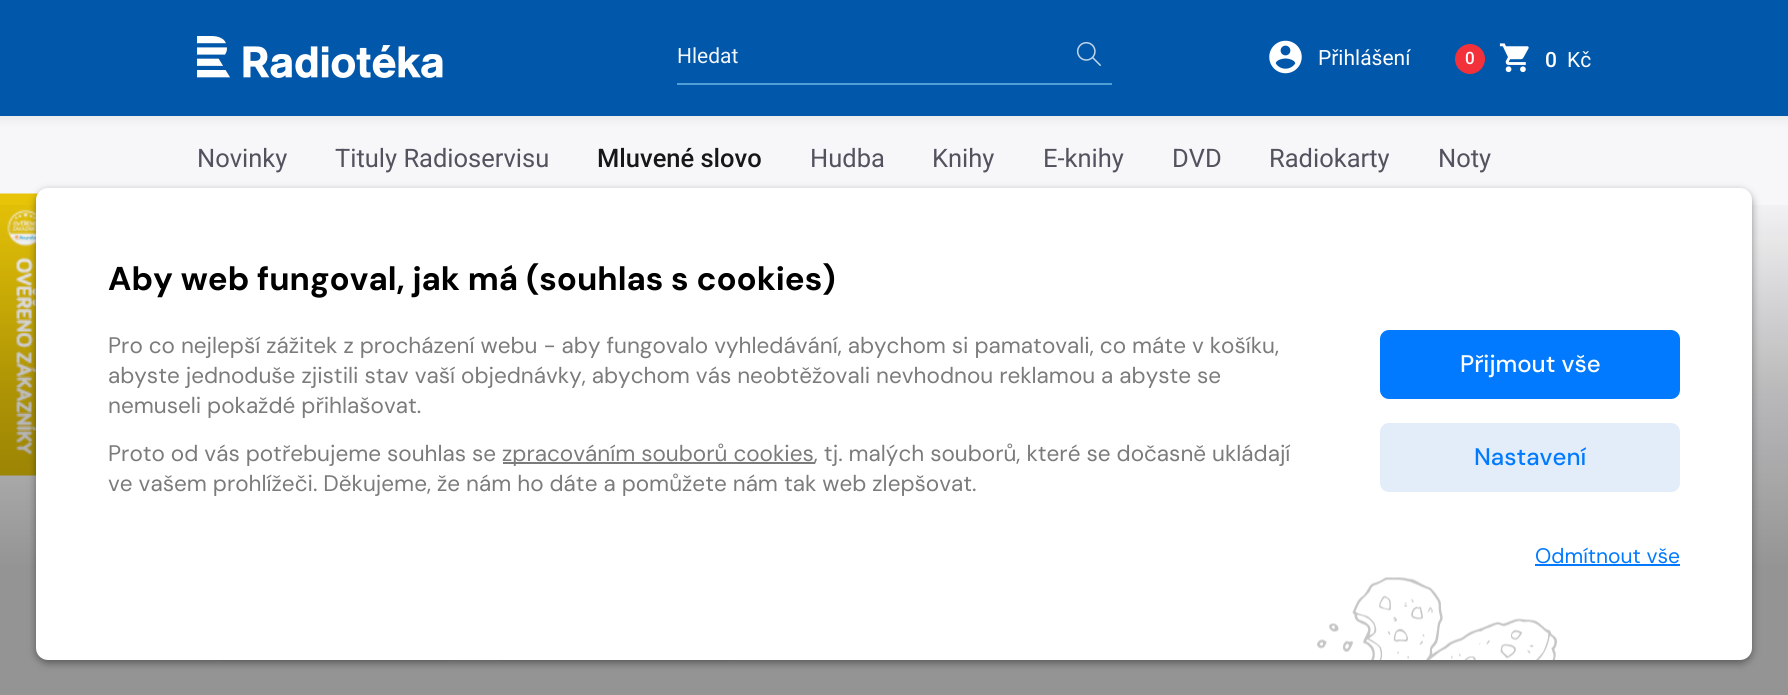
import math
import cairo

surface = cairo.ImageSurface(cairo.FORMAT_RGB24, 1788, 695)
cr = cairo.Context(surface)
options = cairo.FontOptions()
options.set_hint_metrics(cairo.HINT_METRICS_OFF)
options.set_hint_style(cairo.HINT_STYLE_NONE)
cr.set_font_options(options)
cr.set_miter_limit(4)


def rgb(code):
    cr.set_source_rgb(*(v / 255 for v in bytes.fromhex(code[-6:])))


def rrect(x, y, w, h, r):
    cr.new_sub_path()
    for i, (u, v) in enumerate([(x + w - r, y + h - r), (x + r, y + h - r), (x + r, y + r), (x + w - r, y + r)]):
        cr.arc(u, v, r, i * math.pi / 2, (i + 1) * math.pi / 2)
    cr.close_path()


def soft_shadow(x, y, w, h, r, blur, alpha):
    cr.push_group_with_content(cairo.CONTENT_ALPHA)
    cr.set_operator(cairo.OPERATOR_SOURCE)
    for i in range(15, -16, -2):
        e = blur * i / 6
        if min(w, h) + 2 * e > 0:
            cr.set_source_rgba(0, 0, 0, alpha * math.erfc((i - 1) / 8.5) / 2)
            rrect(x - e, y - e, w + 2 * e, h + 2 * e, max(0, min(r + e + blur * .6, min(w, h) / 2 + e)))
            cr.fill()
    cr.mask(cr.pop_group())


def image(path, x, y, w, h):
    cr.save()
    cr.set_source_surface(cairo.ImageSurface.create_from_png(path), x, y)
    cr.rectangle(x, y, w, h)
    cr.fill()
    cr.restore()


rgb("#f7f7f9")
cr.paint()
rgb("#000000")
soft_shadow(-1, -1, 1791, 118, 0, 6, 0.1)
rgb("#0157aa")
cr.rectangle(0, 0, 1788, 116)
cr.fill()
image("img/1.png", 197, 36, 246, 42)
rgb("#519fd7")
cr.rectangle(677, 83, 435, 2)
cr.fill()
image("img/2.png", 1076, 42, 25, 24)
image("img/3.png", 1269, 40, 33, 34)
rgb("#f3313a")
cr.arc(1470, 59, 15, 0, 2 * math.pi)
cr.fill()
image("img/4.png", 1499, 43, 30, 30)
rgb("#000000")
soft_shadow(219, 419, 234, 234, 5, 5, 0.33)
soft_shadow(498, 419, 234, 234, 5, 5, 0.33)
image("img/5.png", 0, 193, 39, 283)
gradient = cairo.LinearGradient(894, 187, 894, 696)
gradient.add_color_stop_rgba(0, 0, 0, 0, 0)
gradient.add_color_stop_rgba(0.4, 0, 0, 0, 0.25)
gradient.add_color_stop_rgba(0.75, 0, 0, 0, 0.4)
cr.set_source(gradient)
cr.rectangle(0, 205, 1788, 490)
cr.fill()
rgb("#000000")
soft_shadow(36, 191, 1716, 472, 12, 4, 0.4)
rgb("#ffffff")
rrect(36, 188, 1716, 472, 12)
cr.fill()
rgb("#7b7b7b")
cr.rectangle(503, 462, 312, 2)
cr.fill()
rgb("#017aff")
rrect(1380, 330, 300, 69, 9)
cr.fill()
rgb("#e2edf9")
rrect(1380, 423, 300, 69, 9)
cr.fill()
rgb("#017aff")
cr.rectangle(1535, 564, 145, 2)
cr.fill()
image("img/6.png", 1317, 577, 240, 83)
cr.select_font_face("Roboto")
cr.set_font_size(21)
rgb("#f2f7fb")
cr.move_to(677, 63)
cr.show_text("Hledat")
rgb("#ffffff")
cr.move_to(1318, 65)
cr.show_text("Přihlášení")
cr.select_font_face("Roboto Medium")
cr.set_font_size(17)
cr.move_to(1465, 64)
cr.show_text("0")
cr.set_font_size(21)
cr.move_to(1545, 67)
cr.show_text("0")
cr.select_font_face("Roboto")
cr.move_to(1567, 67)
cr.show_text("Kč")
cr.set_font_size(25.5)
rgb("#54525f")
cr.move_to(197, 167)
cr.show_text("Novinky")
cr.move_to(335, 167)
cr.show_text("Tituly Radioservisu")
cr.select_font_face("Roboto Medium")
rgb("#171719")
cr.move_to(597, 167)
cr.show_text("Mluvené slovo")
cr.select_font_face("Roboto")
rgb("#54525f")
for x, y, s in [
    (810, 167, "Hudba"),
    (932, 167, "Knihy"),
    (1043, 167, "E-knihy"),
    (1172, 167, "DVD"),
    (1269, 167, "Radiokarty"),
    (1438, 167, "Noty"),
]:
    cr.move_to(x, y)
    cr.show_text(s)
cr.select_font_face("DM Sans", cairo.FONT_SLANT_NORMAL, cairo.FONT_WEIGHT_BOLD)
cr.set_font_size(33)
rgb("#000000")
cr.move_to(108, 290)
cr.show_text("Aby web fungoval, jak má (souhlas s cookies)")
cr.select_font_face("DM Sans")
cr.set_font_size(22.5)
rgb("#7b7b7b")
for x, y, s in [
    (108, 353, "Pro co nejlepší zážitek z procházení webu - aby fungovalo vyhledávání, abychom si pamatovali, co máte v košíku,"),
    (108, 383, "abyste jednoduše zjistili stav vaší objednávky, abychom vás neobtěžovali nevhodnou reklamou a abyste se"),
    (108, 413, "nemuseli pokaždé přihlašovat."),
    (108, 461, "Proto od vás potřebujeme souhlas se"),
    (502, 461, "zpracováním souborů cookies, tj. malých souborů, které se dočasně ukládají"),
    (108, 491, "ve vašem prohlížeči. Děkujeme, že nám ho dáte a pomůžete nám tak web zlepšovat."),
]:
    cr.move_to(x, y)
    cr.show_text(s)
cr.select_font_face("DM Sans Medium")
cr.set_font_size(24)
rgb("#ffffff")
cr.move_to(1460, 372)
cr.show_text("Přijmout vše")
rgb("#017aff")
cr.move_to(1474, 465)
cr.show_text("Nastavení")
cr.select_font_face("DM Sans")
cr.set_font_size(21)
cr.move_to(1535, 563)
cr.show_text("Odmítnout vše")
surface.write_to_png("page.png")
